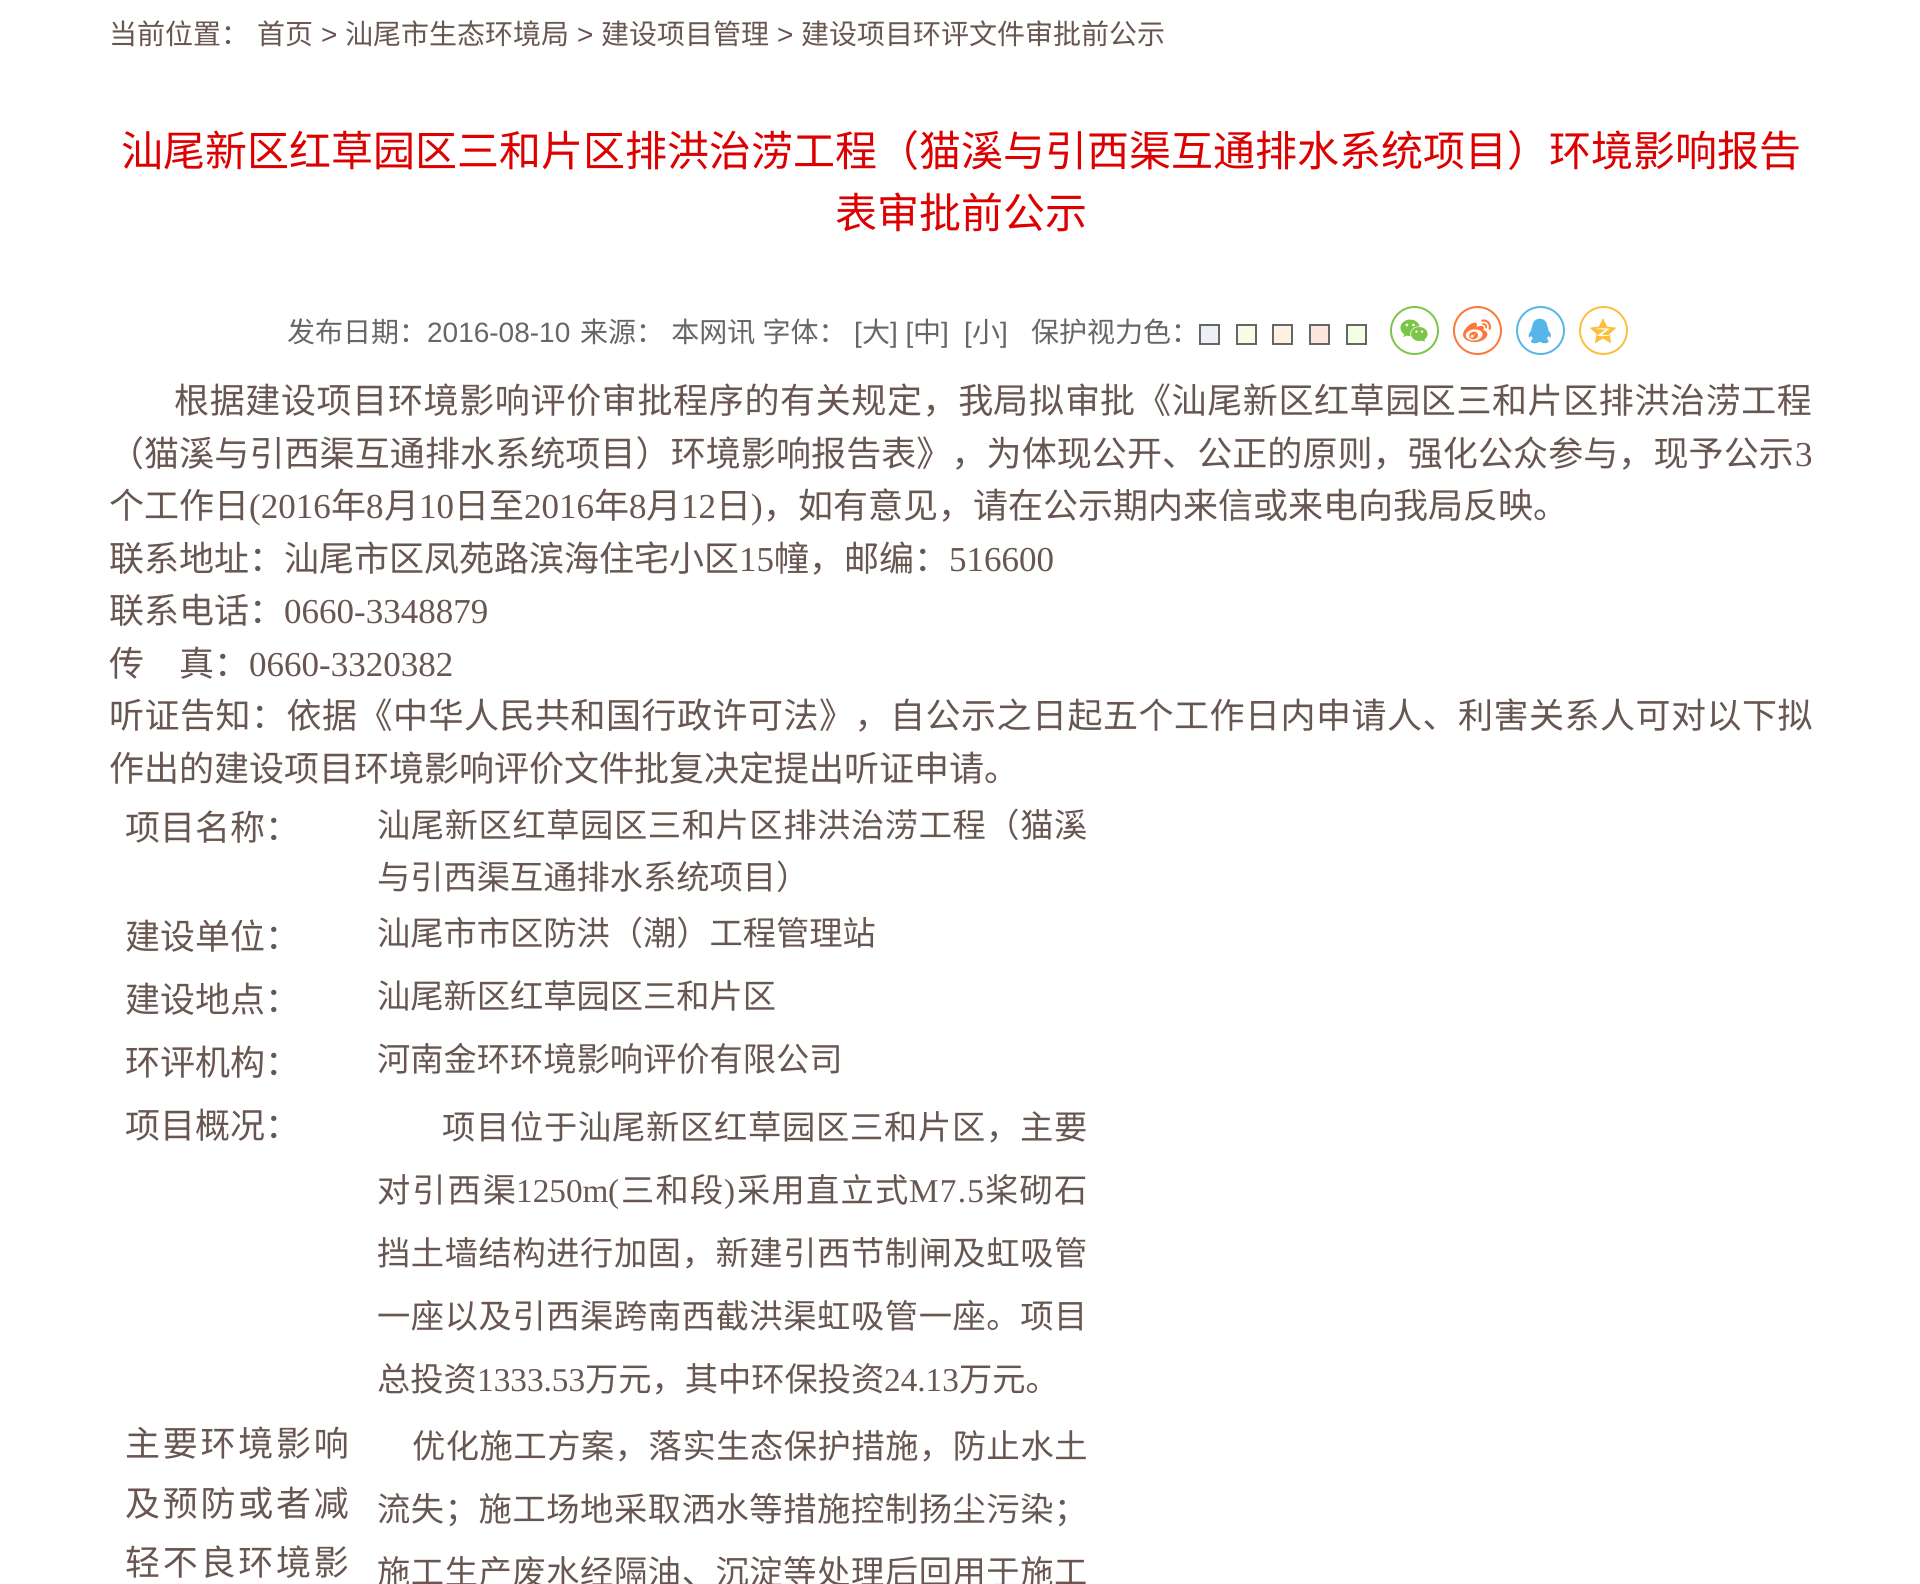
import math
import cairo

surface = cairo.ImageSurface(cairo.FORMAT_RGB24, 1920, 1584)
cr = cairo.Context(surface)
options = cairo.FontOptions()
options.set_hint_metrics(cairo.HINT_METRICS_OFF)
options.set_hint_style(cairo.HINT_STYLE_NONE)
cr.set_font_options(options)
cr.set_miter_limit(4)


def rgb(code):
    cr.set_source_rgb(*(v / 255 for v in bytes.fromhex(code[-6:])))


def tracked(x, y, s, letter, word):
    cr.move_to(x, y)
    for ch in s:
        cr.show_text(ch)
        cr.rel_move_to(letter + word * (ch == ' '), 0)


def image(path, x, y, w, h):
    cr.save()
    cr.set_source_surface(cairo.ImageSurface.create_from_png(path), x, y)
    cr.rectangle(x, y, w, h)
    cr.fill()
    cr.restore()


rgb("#ffffff")
cr.paint()
rgb("#edf0f5")
cr.rectangle(1200, 325, 19, 19)
cr.fill_preserve()
rgb("#666666")
cr.stroke()
rgb("#fafbe6")
cr.rectangle(1237, 325, 19, 19)
cr.fill_preserve()
rgb("#666666")
cr.stroke()
rgb("#fff2e2")
cr.rectangle(1273, 325, 19, 19)
cr.fill_preserve()
rgb("#666666")
cr.stroke()
rgb("#fde6e0")
cr.rectangle(1310, 325, 19, 19)
cr.fill_preserve()
rgb("#666666")
cr.stroke()
rgb("#f3ffe1")
cr.rectangle(1347, 325, 19, 19)
cr.fill_preserve()
rgb("#666666")
cr.stroke()
cr.arc(1414.5, 330.5, 23.5, 0, 2 * math.pi)
rgb("#7bc549")
cr.stroke()
image("img/1.png", 1400, 319, 28, 23)
cr.arc(1477.5, 330.5, 23.5, 0, 2 * math.pi)
rgb("#ff763b")
cr.stroke()
image("img/2.png", 1463, 319, 28, 24)
cr.arc(1540.5, 330.5, 23.5, 0, 2 * math.pi)
rgb("#56b6e7")
cr.stroke()
image("img/3.png", 1528, 318, 23, 26)
cr.arc(1603.5, 330.5, 23.5, 0, 2 * math.pi)
rgb("#fdbe3d")
cr.stroke()
image("img/4.png", 1590, 318, 26, 25)
cr.select_font_face("Noto Sans CJK SC")
cr.set_font_size(28)
rgb("#685651")
cr.move_to(109, 44)
cr.show_text("当前位置：")
cr.move_to(257, 44)
cr.show_text("首页")
cr.select_font_face("Liberation Sans")
cr.move_to(321, 44)
cr.show_text(">")
cr.select_font_face("Noto Sans CJK SC")
cr.move_to(345, 44)
cr.show_text("汕尾市生态环境局")
cr.select_font_face("Liberation Sans")
cr.move_to(577, 44)
cr.show_text(">")
cr.select_font_face("Noto Sans CJK SC")
cr.move_to(601, 44)
cr.show_text("建设项目管理")
cr.select_font_face("Liberation Sans")
cr.move_to(777, 44)
cr.show_text(">")
cr.select_font_face("Noto Sans CJK SC")
cr.move_to(801, 44)
cr.show_text("建设项目环评文件审批前公示")
cr.set_font_size(42)
rgb("#dd0000")
cr.move_to(121, 166)
cr.show_text("汕尾新区红草园区三和片区排洪治涝工程（猫溪与引西渠互通排水系统项目）环境影响报告")
cr.move_to(835, 228)
cr.show_text("表审批前公示")
cr.set_font_size(28)
rgb("#666666")
cr.move_to(287, 342)
cr.show_text("发布日期：")
cr.select_font_face("Liberation Sans")
cr.move_to(427, 342)
cr.show_text("2016-08-10")
cr.select_font_face("Noto Sans CJK SC")
tracked(580, 342, "来源： 本网讯 字体：", 0, 1)
cr.select_font_face("Liberation Sans")
cr.move_to(854, 342)
cr.show_text("[")
cr.select_font_face("Noto Sans CJK SC")
cr.move_to(862, 342)
cr.show_text("大")
cr.select_font_face("Liberation Sans")
cr.move_to(890, 342)
cr.show_text("] [")
cr.select_font_face("Noto Sans CJK SC")
cr.move_to(913, 342)
cr.show_text("中")
cr.select_font_face("Liberation Sans")
cr.move_to(941, 342)
cr.show_text("]")
cr.move_to(964, 342)
cr.show_text("[")
cr.select_font_face("Noto Sans CJK SC")
cr.move_to(972, 342)
cr.show_text("小")
cr.select_font_face("Liberation Sans")
cr.move_to(1000, 342)
cr.show_text("]")
cr.select_font_face("Noto Sans CJK SC")
cr.move_to(1031, 342)
cr.show_text("保护视力色：")
cr.set_font_size(35)
rgb("#685651")
tracked(174, 413, "根据建设项目环境影响评价审批程序的有关规定，我", 0.65, 0)
for x, y, s in [
    (993, 413, "局"),
    (1029, 413, "拟"),
    (1065, 413, "审批"),
]:
    cr.move_to(x, y)
    cr.show_text(s)
tracked(1136, 413, "《汕尾新区红草园区三和片区排洪治涝工程", 0.6, 0)
tracked(109, 466, "（猫溪与引西渠互通排水系统项目）环境影响报告表》，为体现公开、公正的原则，强化公众参与，现予公示", 0.1, 0)
cr.select_font_face("Liberation Serif")
cr.move_to(1795, 466)
cr.show_text("3")
cr.select_font_face("Noto Sans CJK SC")
cr.move_to(109, 518)
cr.show_text("个工作日")
cr.select_font_face("Liberation Serif")
cr.move_to(249, 518)
cr.show_text("(2016")
cr.select_font_face("Noto Sans CJK SC")
cr.move_to(331, 518)
cr.show_text("年")
cr.select_font_face("Liberation Serif")
cr.move_to(366, 518)
cr.show_text("8")
cr.select_font_face("Noto Sans CJK SC")
cr.move_to(384, 518)
cr.show_text("月")
cr.select_font_face("Liberation Serif")
cr.move_to(419, 518)
cr.show_text("10")
cr.select_font_face("Noto Sans CJK SC")
cr.move_to(454, 518)
cr.show_text("日至")
cr.select_font_face("Liberation Serif")
cr.move_to(524, 518)
cr.show_text("2016")
cr.select_font_face("Noto Sans CJK SC")
cr.move_to(594, 518)
cr.show_text("年")
cr.select_font_face("Liberation Serif")
cr.move_to(629, 518)
cr.show_text("8")
cr.select_font_face("Noto Sans CJK SC")
cr.move_to(646, 518)
cr.show_text("月")
cr.select_font_face("Liberation Serif")
cr.move_to(681, 518)
cr.show_text("12")
cr.select_font_face("Noto Sans CJK SC")
cr.move_to(716, 518)
cr.show_text("日")
cr.select_font_face("Liberation Serif")
cr.move_to(751, 518)
cr.show_text(")")
cr.select_font_face("Noto Sans CJK SC")
cr.move_to(763, 518)
cr.show_text("，如有意见，请在公示期内来信或来电向我局反映。")
cr.move_to(109, 571)
cr.show_text("联系地址：汕尾市区凤苑路滨海住宅小区")
cr.select_font_face("Liberation Serif")
cr.move_to(739, 571)
cr.show_text("15")
cr.select_font_face("Noto Sans CJK SC")
cr.move_to(774, 571)
cr.show_text("幢，邮编：")
cr.select_font_face("Liberation Serif")
cr.move_to(949, 571)
cr.show_text("516600")
cr.select_font_face("Noto Sans CJK SC")
cr.move_to(109, 623)
cr.show_text("联系电话：")
cr.select_font_face("Liberation Serif")
cr.move_to(284, 623)
cr.show_text("0660-3348879")
cr.select_font_face("Noto Sans CJK SC")
cr.move_to(109, 676)
cr.show_text("传")
cr.move_to(179, 676)
cr.show_text("真：")
cr.select_font_face("Liberation Serif")
cr.move_to(249, 676)
cr.show_text("0660-3320382")
cr.select_font_face("Noto Sans CJK SC")
tracked(109, 728, "听证告知：依据《中华人民共和国行政许可法》，自公示之日起五个工作日内申请人、利害关系人可对以下拟", 0.5, 0)
cr.move_to(109, 781)
cr.show_text("作出的建设项目环境影响评价文件批复决定提出听证申请。")
cr.move_to(125, 840)
cr.show_text("项目名称：")
cr.set_font_size(33.25)
tracked(377, 837, "汕尾新区红草园区三和片区排洪治涝工程（猫溪", 0.6, 0)
cr.move_to(377, 889)
cr.show_text("与引西渠互通排水系统项目）")
cr.set_font_size(35)
cr.move_to(125, 949)
cr.show_text("建设单位：")
cr.set_font_size(33.25)
cr.move_to(377, 945)
cr.show_text("汕尾市市区防洪（潮）工程管理站")
cr.set_font_size(35)
cr.move_to(125, 1012)
cr.show_text("建设地点：")
cr.set_font_size(33.25)
cr.move_to(377, 1008)
cr.show_text("汕尾新区红草园区三和片区")
cr.set_font_size(35)
cr.move_to(125, 1075)
cr.show_text("环评机构：")
cr.set_font_size(33.25)
cr.move_to(377, 1071)
cr.show_text("河南金环环境影响评价有限公司")
cr.set_font_size(35)
cr.move_to(125, 1138)
cr.show_text("项目概况：")
cr.set_font_size(33.25)
tracked(442, 1139, "项目位于汕尾新区红草园区三和片区，主要", 0.75, 0)
tracked(377, 1202, "对引西渠", 2, 0)
cr.select_font_face("Liberation Serif")
cr.move_to(516, 1202)
cr.show_text("1250m")
tracked(608, 1202, "(", 1.25, 0)
cr.select_font_face("Noto Sans CJK SC")
tracked(621, 1202, "三和段", 1.25, 0)
cr.select_font_face("Liberation Serif")
tracked(724, 1202, ")", 1.25, 0)
cr.select_font_face("Noto Sans CJK SC")
tracked(737, 1202, "采用直立式", 1.25, 0)
cr.select_font_face("Liberation Serif")
tracked(909, 1202, "M7.5", 1.25, 0)
cr.select_font_face("Noto Sans CJK SC")
tracked(985, 1202, "桨砌石", 1.25, 0)
tracked(377, 1265, "挡土墙结构进行加固，新建引西节制闸及虹吸管", 0.6, 0)
tracked(377, 1328, "一座以及引西渠跨南西截洪渠虹吸管一座。项目", 0.6, 0)
cr.move_to(377, 1391)
cr.show_text("总投资")
cr.select_font_face("Liberation Serif")
cr.move_to(477, 1391)
cr.show_text("1333.53")
cr.select_font_face("Noto Sans CJK SC")
cr.move_to(585, 1391)
cr.show_text("万元，其中环保投资")
cr.select_font_face("Liberation Serif")
cr.move_to(884, 1391)
cr.show_text("24.13")
cr.select_font_face("Noto Sans CJK SC")
cr.move_to(959, 1391)
cr.show_text("万元。")
cr.set_font_size(35)
for x, y, s in [
    (125, 1456, "主要环境影响"),
    (125, 1516, "及预防或者减"),
    (125, 1575, "轻不良环境影"),
]:
    tracked(x, y, s, 2.75, 0)
cr.set_font_size(33.25)
tracked(412, 1458, "优化施工方案，落实生态保护措施，防止水土", 0.55, 0)
tracked(377, 1521, "流失；施工场地采取洒水等措施控制扬尘污染；", 0.6, 0)
tracked(377, 1584, "施工生产废水经隔油、沉淀等处理后回用于施工", 0.6, 0)
surface.write_to_png("page.png")
